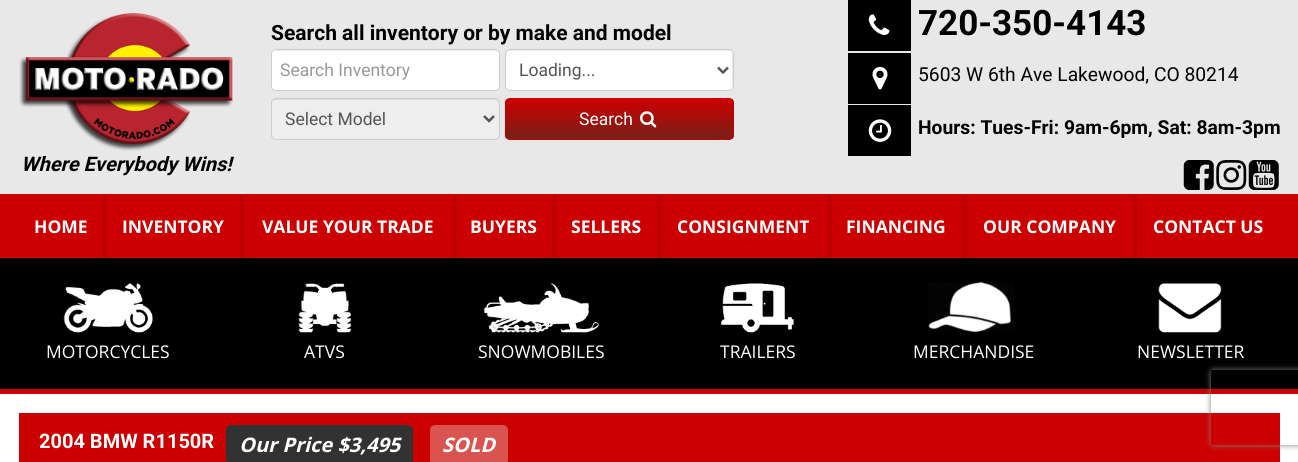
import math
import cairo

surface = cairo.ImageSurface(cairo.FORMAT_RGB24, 1298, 462)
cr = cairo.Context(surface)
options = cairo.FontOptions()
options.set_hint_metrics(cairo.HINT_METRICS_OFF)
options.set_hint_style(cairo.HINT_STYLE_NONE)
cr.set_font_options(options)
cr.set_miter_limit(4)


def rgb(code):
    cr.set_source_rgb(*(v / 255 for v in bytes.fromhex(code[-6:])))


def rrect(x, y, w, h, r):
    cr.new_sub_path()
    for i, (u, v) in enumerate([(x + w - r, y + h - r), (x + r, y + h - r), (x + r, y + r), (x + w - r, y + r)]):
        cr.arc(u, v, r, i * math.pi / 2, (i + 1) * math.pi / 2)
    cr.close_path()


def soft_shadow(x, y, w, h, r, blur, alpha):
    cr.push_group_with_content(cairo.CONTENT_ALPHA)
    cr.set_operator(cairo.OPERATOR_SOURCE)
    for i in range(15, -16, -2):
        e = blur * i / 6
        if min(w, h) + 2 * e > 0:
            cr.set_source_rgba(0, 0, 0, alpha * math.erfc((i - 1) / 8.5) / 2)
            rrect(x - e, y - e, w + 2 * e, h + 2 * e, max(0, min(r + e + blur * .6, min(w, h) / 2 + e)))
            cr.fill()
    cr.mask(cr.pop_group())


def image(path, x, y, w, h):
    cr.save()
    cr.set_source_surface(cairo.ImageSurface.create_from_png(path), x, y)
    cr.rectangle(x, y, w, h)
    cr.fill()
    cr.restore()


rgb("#ffffff")
cr.paint()
rgb("#e8e8e8")
cr.rectangle(0, 0, 1298, 194)
cr.fill()
rgb("#ffffff")
rrect(271, 49, 229, 42, 5)
cr.fill()
rgb("#ececec")
cr.new_path()
cr.move_to(276, 51)
cr.line_to(495, 51)
cr.curve_to(497, 51, 499, 53, 499, 55)
cr.line_to(499, 54)
cr.curve_to(499, 52, 497, 50, 495, 50)
cr.line_to(277, 50)
cr.curve_to(276, 50, 274, 51, 274, 52)
cr.close_path()
cr.fill()
rrect(271.5, 49.5, 228, 41, 4.5)
rgb("#cccccc")
cr.set_line_width(1)
cr.stroke()
rgb("#ffffff")
rrect(505, 49, 229, 42, 5)
cr.fill()
rgb("#ececec")
cr.new_path()
cr.move_to(510, 51)
cr.line_to(729, 51)
cr.curve_to(731, 51, 732, 53, 732, 55)
cr.line_to(732, 89)
cr.curve_to(733, 88, 733, 87, 733, 86)
cr.line_to(733, 54)
cr.curve_to(733, 52, 731, 50, 729, 50)
cr.line_to(510, 50)
cr.curve_to(508, 50, 506, 52, 506, 54)
cr.line_to(506, 55)
cr.curve_to(506, 53, 508, 51, 510, 51)
cr.close_path()
cr.fill()
rrect(505.5, 49.5, 228, 41, 4.5)
rgb("#cccccc")
cr.stroke()
cr.new_path()
cr.move_to(718, 67.5)
cr.line_to(723, 72.5)
cr.line_to(728, 67.5)
rgb("#555555")
cr.set_line_width(2.5)
cr.stroke()
rgb("#eeeeee")
rrect(271, 98, 229, 42, 5)
cr.fill()
rgb("#dcdcdc")
cr.new_path()
cr.move_to(276, 100)
cr.line_to(495, 100)
cr.curve_to(497, 100, 499, 102, 499, 104)
cr.line_to(499, 103)
cr.curve_to(499, 101, 497, 99, 495, 99)
cr.line_to(277, 99)
cr.curve_to(276, 99, 274, 100, 274, 101)
cr.close_path()
cr.fill()
rrect(271.5, 98.5, 228, 41, 4.5)
rgb("#cccccc")
cr.set_line_width(1)
cr.stroke()
cr.new_path()
cr.move_to(484, 116)
cr.line_to(489, 121)
cr.line_to(494, 116)
rgb("#555555")
cr.set_line_width(2.5)
cr.stroke()
cr.save()
rrect(505, 98, 229, 42, 5)
cr.clip()
gradient = cairo.LinearGradient(619, 99, 619, 139)
gradient.add_color_stop_rgba(0, 0.8, 0, 0, 1)
gradient.add_color_stop_rgba(1, 0.471, 0.122, 0.094, 1)
cr.set_source(gradient)
cr.rectangle(505, 99, 229, 40)
cr.fill()
cr.restore()
rrect(505.5, 98.5, 228, 41, 4.5)
rgb("#cc0000")
cr.set_line_width(1)
cr.stroke()
image("img/1.png", 640, 111, 17, 17)
image("img/2.png", 19, 12, 214, 139)
rgb("#000000")
cr.rectangle(848, 0, 63, 51)
cr.fill()
image("img/3.png", 868, 14, 22, 21)
cr.rectangle(848, 53, 63, 51)
cr.fill()
image("img/4.png", 872, 66, 16, 24)
cr.rectangle(848, 105, 63, 51)
cr.fill()
image("img/5.png", 868, 119, 24, 23)
image("img/6.png", 1183, 160, 31, 30)
image("img/7.png", 1216, 160, 31, 30)
image("img/8.png", 1248, 160, 31, 30)
for x, y, w, h, color in [
    (0, 194, 1298, 64, "#cc0000"),
    (103, 195, 3, 63, "#b90000"),
    (240, 195, 3, 63, "#b90000"),
    (453, 195, 3, 63, "#b90000"),
    (553, 195, 3, 63, "#b90000"),
    (658, 195, 3, 63, "#b90000"),
    (828, 195, 3, 63, "#b90000"),
    (963, 195, 3, 63, "#b90000"),
    (1134, 195, 3, 63, "#b90000"),
    (0, 258, 1298, 131, "#000000"),
    (0, 389, 1298, 5, "#cc0000"),
]:
    rgb(color)
    cr.rectangle(x, y, w, h)
    cr.fill()
image("img/9.png", 63, 283, 90, 50)
image("img/10.png", 298, 283, 54, 50)
image("img/11.png", 483, 283, 116, 50)
image("img/12.png", 721, 283, 73, 50)
image("img/13.png", 928, 282, 86, 51)
image("img/14.png", 1158, 283, 64, 50)
cr.rectangle(19.5, 413.5, 1260, 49)
cr.stroke()
cr.rectangle(20, 414, 1259, 48)
cr.fill()
rgb("#323232")
rrect(226, 425, 187, 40, 5)
cr.fill()
rgb("#d9534f")
rrect(430, 425, 78, 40, 5)
cr.fill()
cr.save()
cr.set_fill_rule(cairo.FILL_RULE_EVEN_ODD)
cr.new_path()
cr.move_to(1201, 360)
cr.line_to(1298, 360)
cr.line_to(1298, 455)
cr.line_to(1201, 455)
cr.close_path()
cr.move_to(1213.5, 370)
cr.line_to(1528.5, 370)
cr.curve_to(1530, 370, 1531, 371, 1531, 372.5)
cr.line_to(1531, 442.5)
cr.curve_to(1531, 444, 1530, 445, 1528.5, 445)
cr.line_to(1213.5, 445)
cr.curve_to(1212, 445, 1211, 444, 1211, 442.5)
cr.line_to(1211, 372.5)
cr.curve_to(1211, 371, 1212, 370, 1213.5, 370)
cr.close_path()
cr.clip()
rgb("#808080")
soft_shadow(1211, 370, 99, 75, 2.5, 3, 1)
cr.restore()
cr.select_font_face("Roboto", cairo.FONT_SLANT_NORMAL, cairo.FONT_WEIGHT_BOLD)
cr.set_font_size(21)
rgb("#000000")
cr.move_to(271, 40)
cr.show_text("Search all inventory or by make and model")
cr.select_font_face("Roboto")
cr.set_font_size(17.5)
rgb("#999999")
cr.move_to(280, 76)
cr.show_text("Search Inventory")
rgb("#555555")
cr.move_to(519, 76)
cr.show_text("Loading...")
cr.move_to(285, 125)
cr.show_text("Select Model")
rgb("#ffffff")
cr.move_to(579, 125)
cr.show_text("Search")
cr.select_font_face("Roboto", cairo.FONT_SLANT_ITALIC, cairo.FONT_WEIGHT_BOLD)
cr.set_font_size(20)
rgb("#000000")
cr.move_to(21, 171)
cr.show_text("Where Everybody Wins!")
cr.select_font_face("Roboto", cairo.FONT_SLANT_NORMAL, cairo.FONT_WEIGHT_BOLD)
cr.set_font_size(35)
cr.move_to(918, 35)
cr.show_text("720-350-4143")
cr.select_font_face("Roboto")
cr.set_font_size(19.25)
cr.move_to(918, 81)
cr.show_text("5603 W 6th Ave Lakewood, CO 80214")
cr.select_font_face("Roboto", cairo.FONT_SLANT_NORMAL, cairo.FONT_WEIGHT_BOLD)
cr.move_to(918, 134)
cr.show_text("Hours: Tues-Fri: 9am-6pm, Sat: 8am-3pm")
cr.select_font_face("Open Sans", cairo.FONT_SLANT_NORMAL, cairo.FONT_WEIGHT_BOLD)
cr.set_font_size(17.5)
rgb("#ffffff")
for x, y, s in [
    (34, 233, "HOME"),
    (122, 233, "INVENTORY"),
    (262, 233, "VALUE YOUR TRADE"),
    (470, 233, "BUYERS"),
    (571, 233, "SELLERS"),
    (677, 233, "CONSIGNMENT"),
    (846, 233, "FINANCING"),
    (983, 233, "OUR COMPANY"),
    (1153, 233, "CONTACT US"),
]:
    cr.move_to(x, y)
    cr.show_text(s)
cr.select_font_face("Open Sans")
for x, y, s in [
    (46, 358, "MOTORCYCLES"),
    (304, 358, "ATVS"),
    (478, 358, "SNOWMOBILES"),
    (720, 358, "TRAILERS"),
    (913, 358, "MERCHANDISE"),
    (1137, 358, "NEWSLETTER"),
]:
    cr.move_to(x, y)
    cr.show_text(s)
cr.select_font_face("Roboto", cairo.FONT_SLANT_NORMAL, cairo.FONT_WEIGHT_BOLD)
cr.set_font_size(20)
cr.move_to(39, 448)
cr.show_text("2004 BMW R1150R")
cr.select_font_face("Open Sans", cairo.FONT_SLANT_ITALIC, cairo.FONT_WEIGHT_BOLD)
cr.move_to(239, 452)
cr.show_text("Our Price $3,495")
cr.move_to(442, 452)
cr.show_text("SOLD")
surface.write_to_png("page.png")
